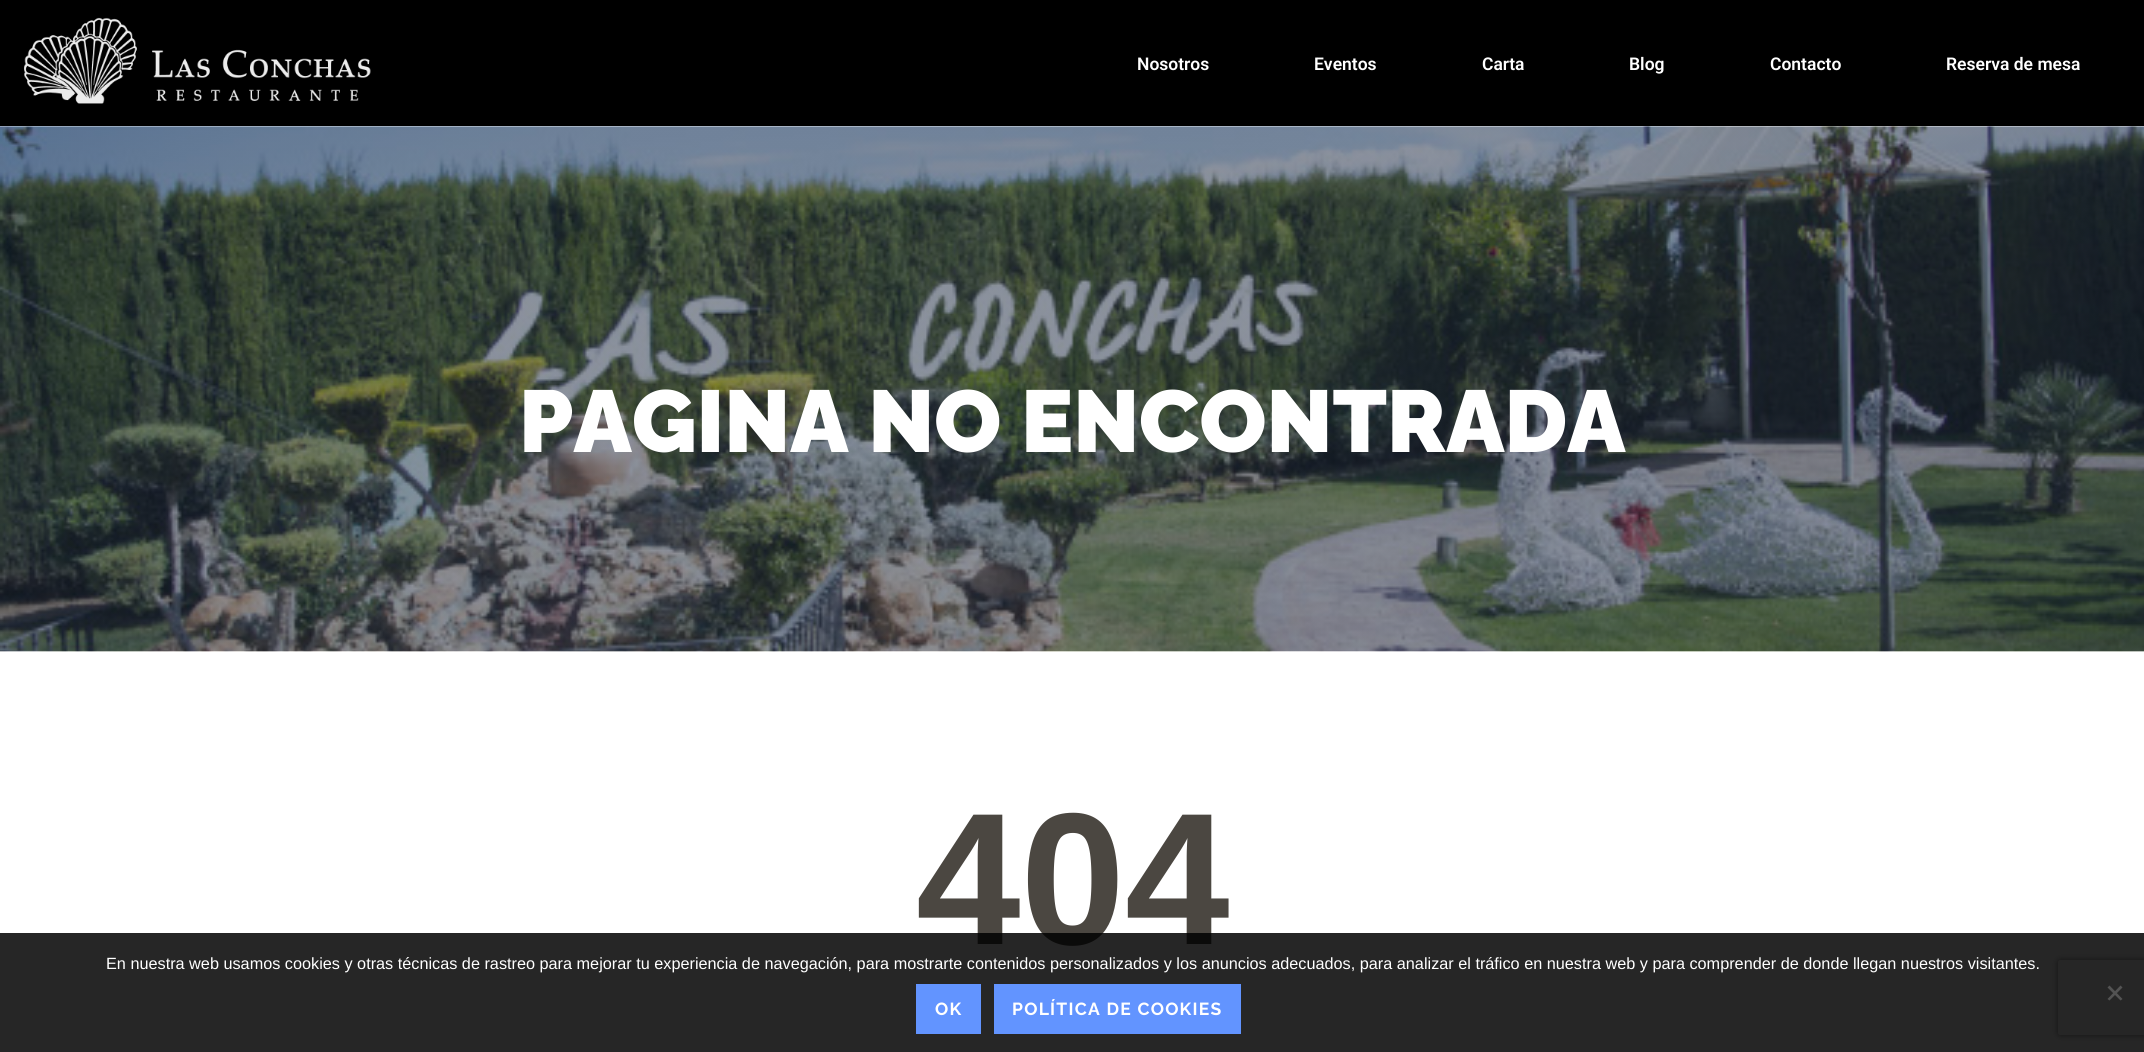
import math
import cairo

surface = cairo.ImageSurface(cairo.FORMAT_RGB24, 2144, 1052)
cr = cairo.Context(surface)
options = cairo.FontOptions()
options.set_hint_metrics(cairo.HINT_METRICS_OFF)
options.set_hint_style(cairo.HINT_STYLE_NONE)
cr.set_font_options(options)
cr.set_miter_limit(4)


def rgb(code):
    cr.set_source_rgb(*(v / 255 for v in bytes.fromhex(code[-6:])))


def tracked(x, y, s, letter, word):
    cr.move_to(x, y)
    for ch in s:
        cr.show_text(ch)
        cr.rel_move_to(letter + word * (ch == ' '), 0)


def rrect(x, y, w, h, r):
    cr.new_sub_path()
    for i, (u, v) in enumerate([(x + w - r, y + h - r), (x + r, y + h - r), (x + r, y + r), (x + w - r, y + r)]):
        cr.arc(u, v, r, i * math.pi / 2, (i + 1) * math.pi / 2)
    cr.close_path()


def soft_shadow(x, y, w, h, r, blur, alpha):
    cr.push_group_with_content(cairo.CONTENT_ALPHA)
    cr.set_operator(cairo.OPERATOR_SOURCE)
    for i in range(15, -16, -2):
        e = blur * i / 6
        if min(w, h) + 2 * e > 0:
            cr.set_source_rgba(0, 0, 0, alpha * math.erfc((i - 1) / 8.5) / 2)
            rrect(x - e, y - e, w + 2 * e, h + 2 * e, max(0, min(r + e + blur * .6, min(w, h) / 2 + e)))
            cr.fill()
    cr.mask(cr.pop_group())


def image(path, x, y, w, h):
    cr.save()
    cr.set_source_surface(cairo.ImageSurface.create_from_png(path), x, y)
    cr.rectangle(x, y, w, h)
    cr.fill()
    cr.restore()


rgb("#ffffff")
cr.paint()
rgb("#000000")
cr.rectangle(0, 0, 2144, 126)
cr.fill()
image("img/1.png", 24, 17, 347, 87)
image("img/2.png", 0, 126, 2144, 526)
cr.save()
cr.set_fill_rule(cairo.FILL_RULE_EVEN_ODD)
cr.new_path()
cr.move_to(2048, 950)
cr.line_to(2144, 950)
cr.line_to(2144, 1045)
cr.line_to(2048, 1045)
cr.close_path()
cr.move_to(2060.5, 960)
cr.line_to(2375.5, 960)
cr.curve_to(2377, 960, 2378, 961, 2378, 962.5)
cr.line_to(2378, 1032.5)
cr.curve_to(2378, 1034, 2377, 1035, 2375.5, 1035)
cr.line_to(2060.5, 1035)
cr.curve_to(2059, 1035, 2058, 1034, 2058, 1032.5)
cr.line_to(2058, 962.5)
cr.curve_to(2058, 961, 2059, 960, 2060.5, 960)
cr.close_path()
cr.clip()
rgb("#808080")
soft_shadow(2058, 960, 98, 75, 2.5, 3, 1)
cr.restore()
cr.select_font_face("Roboto SemiBold")
cr.set_font_size(17.5)
rgb("#ffffff")
for x, y, s in [
    (1137, 70, "Nosotros"),
    (1314, 70, "Eventos"),
    (1482, 70, "Carta"),
    (1629, 70, "Blog"),
    (1770, 70, "Contacto"),
    (1946, 70, "Reserva de mesa"),
]:
    cr.move_to(x, y)
    cr.show_text(s)
cr.select_font_face("Raleway Black")
cr.set_font_size(87.5)
cr.move_to(519, 452)
cr.show_text("PAGINA NO ENCONTRADA")
cr.select_font_face("Liberation Sans", cairo.FONT_SLANT_NORMAL, cairo.FONT_WEIGHT_BOLD)
cr.set_font_size(188)
rgb("#4b4741")
cr.move_to(916, 944)
cr.show_text("404")
cr.set_source_rgba(0, 0, 0, 0.85)
cr.rectangle(0, 933, 2144, 119)
cr.fill()
cr.select_font_face("Liberation Sans")
cr.set_font_size(16.25)
rgb("#ffffff")
cr.move_to(106, 969)
cr.show_text("En nuestra web usamos cookies y otras técnicas de rastreo para mejorar tu experiencia de navegación, para mostrarte contenidos personalizados y los anuncios adecuados, para analizar el tráfico en nuestra web y para comprender de donde llegan nuestros visitantes.")
rgb("#535353")
cr.new_path()
cr.move_to(2120.5, 985.5)
cr.line_to(2122.5, 987.5)
cr.line_to(2109.5, 1000.5)
cr.line_to(2107.5, 999)
cr.close_path()
cr.fill()
cr.new_path()
cr.move_to(2107.5, 987.5)
cr.line_to(2109.5, 985.5)
cr.line_to(2122.5, 999)
cr.line_to(2120.5, 1000.5)
cr.close_path()
cr.fill()
rgb("#6294ff")
cr.rectangle(916, 984, 65, 50)
cr.fill()
cr.select_font_face("Raleway", cairo.FONT_SLANT_NORMAL, cairo.FONT_WEIGHT_BOLD)
cr.set_font_size(17.5)
rgb("#ffffff")
tracked(935, 1015, "OK", 1.25, 0)
rgb("#6294ff")
cr.rectangle(994, 984, 247, 50)
cr.fill()
rgb("#ffffff")
tracked(1012, 1015, "POLÍTICA DE COOKIES", 1.25, 0)
surface.write_to_png("page.png")
